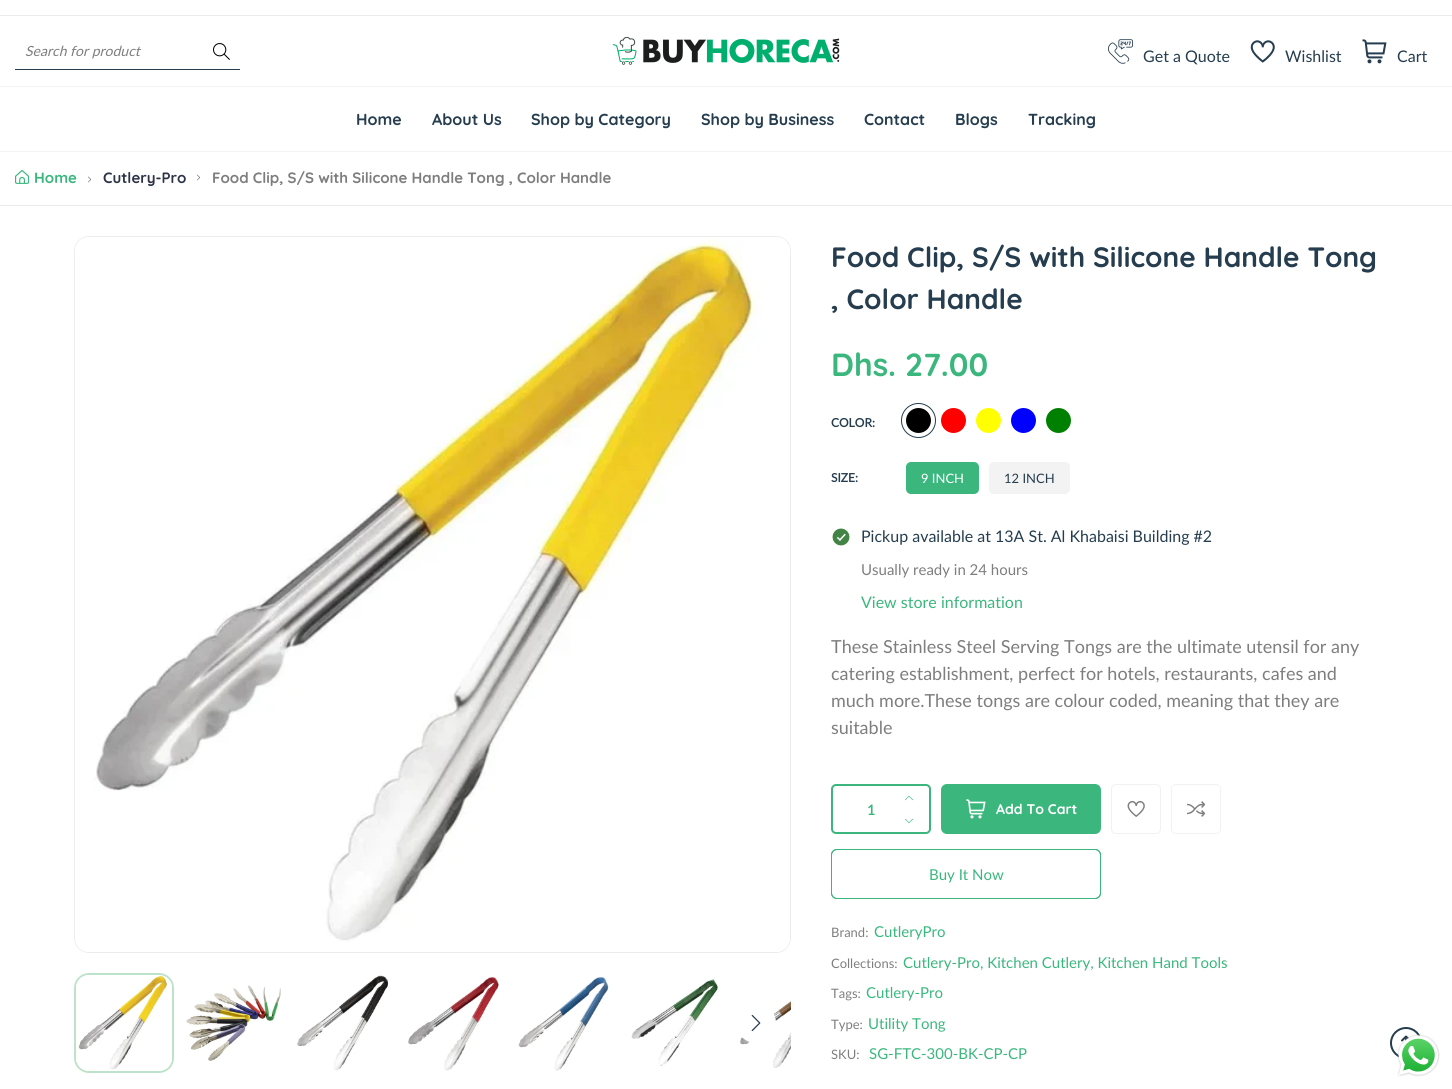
import math
import cairo

surface = cairo.ImageSurface(cairo.FORMAT_RGB24, 1452, 1089)
cr = cairo.Context(surface)
options = cairo.FontOptions()
options.set_hint_metrics(cairo.HINT_METRICS_OFF)
options.set_hint_style(cairo.HINT_STYLE_NONE)
cr.set_font_options(options)
cr.set_miter_limit(4)


def rgb(code):
    cr.set_source_rgb(*(v / 255 for v in bytes.fromhex(code[-6:])))


def rrect(x, y, w, h, r):
    cr.new_sub_path()
    for i, (u, v) in enumerate([(x + w - r, y + h - r), (x + r, y + h - r), (x + r, y + r), (x + w - r, y + r)]):
        cr.arc(u, v, r, i * math.pi / 2, (i + 1) * math.pi / 2)
    cr.close_path()


def image(path, x, y, w, h):
    cr.save()
    cr.set_source_surface(cairo.ImageSurface.create_from_png(path), x, y)
    cr.rectangle(x, y, w, h)
    cr.fill()
    cr.restore()


rgb("#ffffff")
cr.paint()
for x, y, w, h, color in [
    (0, 15, 1452, 1, "#ececec"),
    (0, 151, 1452, 1, "#f3f3f3"),
    (15, 69, 225, 1, "#253d4e"),
]:
    rgb(color)
    cr.rectangle(x, y, w, h)
    cr.fill()
image("img/1.png", 213, 43, 17, 17)
image("img/2.png", 612, 36, 228, 29)
image("img/3.png", 1108, 39, 25, 25)
image("img/4.png", 1250, 40, 25, 23)
image("img/5.png", 1362, 39, 25, 25)
rgb("#f2f2f2")
cr.rectangle(0, 86, 1452, 1)
cr.fill()
image("img/6.png", 88, 176, 3, 7)
image("img/7.png", 15, 170, 14, 14)
image("img/6.png", 197, 174, 3, 7)
rgb("#ececec")
cr.rectangle(0, 205, 1452, 1)
cr.fill()
rrect(74.5, 236.5, 716, 716, 14.5)
cr.set_line_width(1)
cr.stroke()
image("img/8.png", 75, 237, 715, 715)
rrect(75, 974, 98, 98, 14)
rgb("#bce3c9")
cr.set_line_width(2)
cr.stroke()
image("img/9.png", 76, 975, 96, 96)
image("img/10.png", 186, 985, 95, 76)
image("img/11.png", 297, 975, 91, 96)
image("img/12.png", 408, 976, 91, 95)
image("img/13.png", 518, 976, 91, 95)
image("img/14.png", 631, 979, 87, 87)
image("img/15.png", 740, 1001, 51, 67)
rgb("#ffffff")
cr.arc(756, 1023, 20, 0, 2 * math.pi)
cr.fill()
image("img/16.png", 751, 1014, 10, 18)
rgb("#000000")
cr.arc(918.5, 420.5, 12.5, 0, 2 * math.pi)
cr.fill()
cr.arc(918.5, 420.5, 17, 0, 2 * math.pi)
rgb("#253d4e")
cr.set_line_width(1)
cr.stroke()
rgb("#ff0000")
cr.arc(953.5, 420.5, 12.5, 0, 2 * math.pi)
cr.fill()
rgb("#ffff00")
cr.arc(988.5, 420.5, 12.5, 0, 2 * math.pi)
cr.fill()
rgb("#0000ff")
cr.arc(1023.5, 420.5, 12.5, 0, 2 * math.pi)
cr.fill()
rgb("#008000")
cr.arc(1058.5, 420.5, 12.5, 0, 2 * math.pi)
cr.fill()
rgb("#3bb77e")
rrect(906, 462, 73, 32, 5)
cr.fill()
rgb("#f3f3f3")
rrect(989, 462, 81, 32, 5)
cr.fill()
image("img/17.png", 832, 528, 18, 18)
rrect(832, 785, 98, 48, 4)
rgb("#3bb77e")
cr.set_line_width(2)
cr.stroke()
image("img/18.png", 905, 795, 8, 6)
image("img/19.png", 905, 818, 8, 6)
rrect(941, 784, 160, 50, 6)
cr.fill()
image("img/20.png", 966, 799, 20, 20)
rrect(831.5, 849.5, 269, 49, 5.5)
cr.set_line_width(1)
cr.stroke()
rrect(831.5, 849.5, 269, 49, 5.5)
cr.stroke()
rrect(1111.5, 784.5, 49, 49, 4.5)
rgb("#f1f1f1")
cr.stroke()
image("img/21.png", 1127, 800, 18, 17)
rrect(1171.5, 784.5, 49, 49, 4.5)
cr.stroke()
image("img/22.png", 1187, 801, 18, 16)
cr.arc(1406, 1043, 15, 0, 2 * math.pi)
rgb("#253d4e")
cr.set_line_width(2)
cr.stroke()
image("img/23.png", 1401, 1035, 8, 7)
image("img/24.png", 1397, 1034, 43, 43)
cr.select_font_face("Lato", cairo.FONT_SLANT_ITALIC)
cr.set_font_size(14)
rgb("#7e7e7e")
cr.move_to(25, 56)
cr.show_text("Search for product")
cr.select_font_face("Lato")
cr.set_font_size(16)
rgb("#253d4e")
for x, y, s in [
    (1143, 62, "Get a Quote"),
    (1285, 62, "Wishlist"),
    (1397, 62, "Cart"),
]:
    cr.move_to(x, y)
    cr.show_text(s)
cr.select_font_face("Quicksand", cairo.FONT_SLANT_NORMAL, cairo.FONT_WEIGHT_BOLD)
for x, y, s in [
    (356, 125, "Home"),
    (432, 125, "About Us"),
    (531, 125, "Shop by Category"),
    (701, 125, "Shop by Business"),
    (864, 125, "Contact"),
    (955, 125, "Blogs"),
    (1028, 125, "Tracking"),
]:
    cr.move_to(x, y)
    cr.show_text(s)
cr.set_font_size(15)
rgb("#3bb77e")
cr.move_to(34, 183)
cr.show_text("Home")
rgb("#2d3448")
cr.move_to(103, 183)
cr.show_text("Cutlery-Pro")
rgb("#7e7e7e")
cr.move_to(212, 183)
cr.show_text("Food Clip, S/S with Silicone Handle Tong , Color Handle")
cr.set_font_size(28)
rgb("#253d4e")
cr.move_to(831, 267)
cr.show_text("Food Clip, S/S with Silicone Handle Tong")
cr.move_to(831, 309)
cr.show_text(", Color Handle")
cr.set_font_size(32)
rgb("#3bb77e")
cr.move_to(831, 376)
cr.show_text("Dhs. 27.00")
cr.select_font_face("Lato", cairo.FONT_SLANT_NORMAL, cairo.FONT_WEIGHT_BOLD)
cr.set_font_size(12)
rgb("#253d4e")
cr.move_to(831, 427)
cr.show_text("COLOR:")
cr.move_to(831, 482)
cr.show_text("SIZE:")
cr.select_font_face("Lato")
cr.set_font_size(13)
rgb("#ffffff")
cr.move_to(921, 483)
cr.show_text("9 INCH")
rgb("#253d4e")
cr.move_to(1004, 483)
cr.show_text("12 INCH")
cr.set_font_size(16)
cr.move_to(861, 542)
cr.show_text("Pickup available at 13A St. Al Khabaisi Building #2")
cr.set_font_size(15)
rgb("#7e7e7e")
cr.move_to(861, 575)
cr.show_text("Usually ready in 24 hours")
cr.set_font_size(16)
rgb("#3bb77e")
cr.move_to(861, 608)
cr.show_text("View store information")
cr.set_font_size(18)
rgb("#7e7e7e")
for x, y, s in [
    (831, 653, "These Stainless Steel Serving Tongs are the ultimate utensil for any"),
    (831, 680, "catering establishment, perfect for hotels, restaurants, cafes and"),
    (831, 707, "much more.These tongs are colour coded, meaning that they are"),
    (831, 734, "suitable"),
]:
    cr.move_to(x, y)
    cr.show_text(s)
cr.select_font_face("Lato", cairo.FONT_SLANT_NORMAL, cairo.FONT_WEIGHT_BOLD)
cr.set_font_size(14)
rgb("#3bb77e")
cr.move_to(867, 815)
cr.show_text("1")
cr.select_font_face("Quicksand", cairo.FONT_SLANT_NORMAL, cairo.FONT_WEIGHT_BOLD)
rgb("#ffffff")
cr.move_to(996, 814)
cr.show_text("Add To Cart")
cr.select_font_face("Lato")
cr.set_font_size(15)
rgb("#3bb77e")
cr.move_to(929, 880)
cr.show_text("Buy It Now")
cr.set_font_size(13)
rgb("#7e7e7e")
cr.move_to(831, 937)
cr.show_text("Brand:")
cr.set_font_size(15)
rgb("#3bb77e")
cr.move_to(874, 937)
cr.show_text("CutleryPro")
cr.set_font_size(13)
rgb("#7e7e7e")
cr.move_to(831, 968)
cr.show_text("Collections:")
cr.set_font_size(15)
rgb("#3bb77e")
cr.move_to(903, 968)
cr.show_text("Cutlery-Pro, Kitchen Cutlery, Kitchen Hand Tools")
cr.set_font_size(13)
rgb("#7e7e7e")
cr.move_to(831, 998)
cr.show_text("Tags:")
cr.set_font_size(15)
rgb("#3bb77e")
cr.move_to(866, 998)
cr.show_text("Cutlery-Pro")
cr.set_font_size(13)
rgb("#7e7e7e")
cr.move_to(831, 1029)
cr.show_text("Type:")
cr.set_font_size(15)
rgb("#3bb77e")
cr.move_to(868, 1029)
cr.show_text("Utility Tong")
cr.set_font_size(13)
rgb("#7e7e7e")
cr.move_to(831, 1059)
cr.show_text("SKU:")
cr.set_font_size(15)
rgb("#3bb77e")
cr.move_to(869, 1059)
cr.show_text("SG-FTC-300-BK-CP-CP")
surface.write_to_png("page.png")
